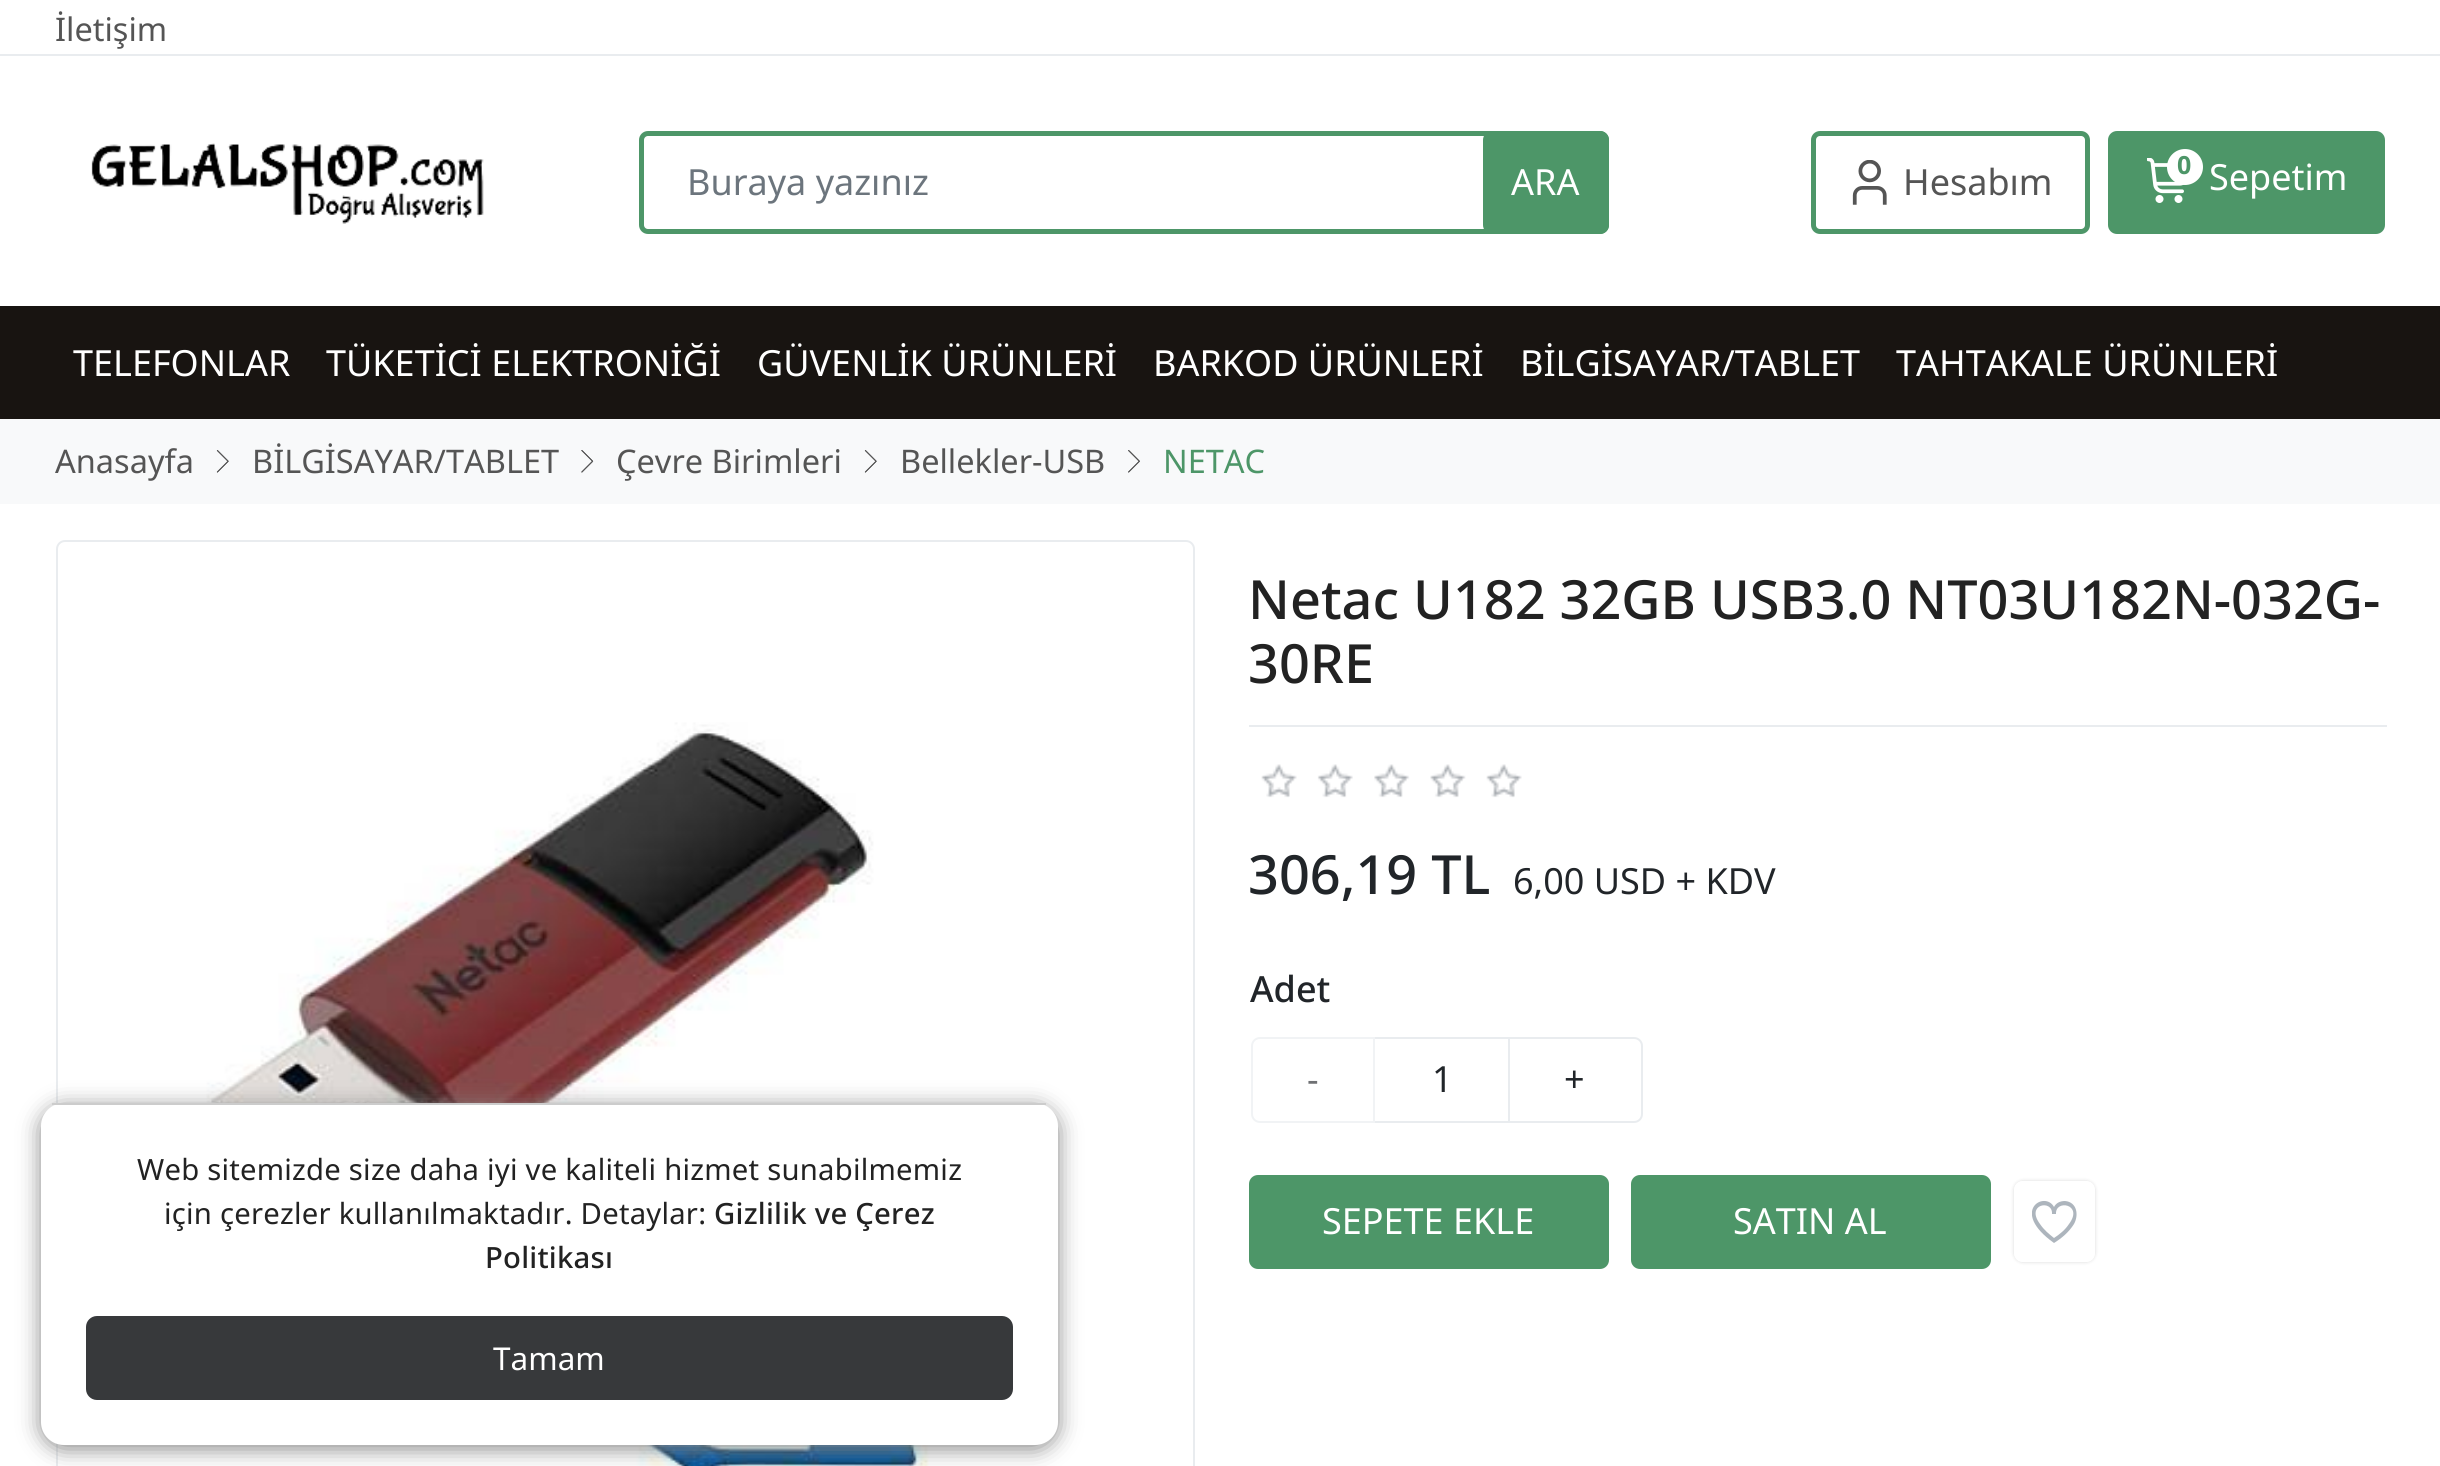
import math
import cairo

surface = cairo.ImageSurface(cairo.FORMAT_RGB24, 2440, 1466)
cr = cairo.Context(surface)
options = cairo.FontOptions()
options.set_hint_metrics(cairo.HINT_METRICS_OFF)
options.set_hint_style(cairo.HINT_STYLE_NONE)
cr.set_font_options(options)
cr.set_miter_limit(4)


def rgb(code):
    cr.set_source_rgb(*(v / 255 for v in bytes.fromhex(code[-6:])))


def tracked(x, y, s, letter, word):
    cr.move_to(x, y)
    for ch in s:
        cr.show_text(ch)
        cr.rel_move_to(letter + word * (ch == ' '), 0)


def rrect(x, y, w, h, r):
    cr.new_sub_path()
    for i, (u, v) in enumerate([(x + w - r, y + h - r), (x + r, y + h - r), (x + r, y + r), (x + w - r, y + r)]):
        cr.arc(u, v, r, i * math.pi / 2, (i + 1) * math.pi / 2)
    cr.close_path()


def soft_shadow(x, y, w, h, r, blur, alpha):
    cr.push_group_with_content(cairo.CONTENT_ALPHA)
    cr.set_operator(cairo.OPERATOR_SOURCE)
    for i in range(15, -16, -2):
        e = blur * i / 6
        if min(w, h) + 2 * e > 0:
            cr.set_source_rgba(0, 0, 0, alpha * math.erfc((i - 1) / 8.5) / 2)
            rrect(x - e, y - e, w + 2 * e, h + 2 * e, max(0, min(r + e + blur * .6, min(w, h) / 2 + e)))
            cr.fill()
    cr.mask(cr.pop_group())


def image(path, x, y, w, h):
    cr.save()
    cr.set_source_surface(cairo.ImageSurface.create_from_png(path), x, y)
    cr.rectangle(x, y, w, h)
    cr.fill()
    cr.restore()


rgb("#ffffff")
cr.paint()
rgb("#e9ecef")
cr.rectangle(0, 54, 2440, 2)
cr.fill()
image("img/1.png", 91, 143, 393, 81)
rrect(641.5, 133.5, 965, 98, 6.5)
rgb("#4d9668")
cr.set_line_width(5)
cr.stroke()
rrect(1483, 131, 126, 103, 9)
cr.fill()
rrect(1813.5, 133.5, 274, 98, 6.5)
cr.stroke()
image("img/2.png", 1852, 160, 35, 45)
rrect(2108, 131, 277, 103, 9)
cr.fill()
image("img/3.png", 2147, 158, 38, 45)
rgb("#ffffff")
cr.arc(2185, 167, 18, 0, 2 * math.pi)
cr.fill()
rgb("#181411")
cr.rectangle(0, 306, 2440, 113)
cr.fill()
rgb("#f8f9fa")
cr.rectangle(0, 419, 2440, 85)
cr.fill()
image("img/4.png", 216, 450, 13, 23)
image("img/5.png", 581, 450, 13, 23)
image("img/4.png", 864, 450, 13, 23)
image("img/6.png", 1128, 450, 12, 23)
rrect(57, 541, 1137, 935, 8)
rgb("#e9ecef")
cr.set_line_width(2)
cr.stroke()
image("img/7.png", 206, 722, 723, 744)
rgb("#888888")
soft_shadow(41, 1107, 1017, 342, 23, 11, 1)
rgb("#ffffff")
rrect(41, 1103, 1017, 342, 23)
cr.fill()
rgb("#cccccc")
cr.rectangle(52, 1103, 994, 2)
cr.fill()
rgb("#37393b")
rrect(86, 1316, 927, 84, 11)
cr.fill()
rgb("#e9ecef")
cr.rectangle(1249, 725, 1138, 2)
cr.fill()
image("img/8.png", 1261, 764, 261, 34)
cr.new_path()
cr.move_to(1260, 1038)
cr.line_to(1374, 1038)
cr.line_to(1374, 1122)
cr.line_to(1260, 1122)
cr.curve_to(1255.5, 1122, 1252, 1118.5, 1252, 1114)
cr.line_to(1252, 1046)
cr.curve_to(1252, 1041.5, 1255.5, 1038, 1260, 1038)
cr.close_path()
rgb("#f1f3f5")
cr.stroke()
rgb("#e9ecef")
cr.rectangle(1375, 1037, 135, 2)
cr.fill()
cr.rectangle(1375, 1121, 135, 2)
cr.fill()
cr.new_path()
cr.move_to(1509, 1038)
cr.line_to(1634, 1038)
cr.curve_to(1638.5, 1038, 1642, 1041.5, 1642, 1046)
cr.line_to(1642, 1114)
cr.curve_to(1642, 1118.5, 1638.5, 1122, 1634, 1122)
cr.line_to(1509, 1122)
cr.close_path()
cr.stroke()
rgb("#4d9668")
rrect(1249, 1175, 360, 94, 9)
cr.fill()
rrect(1631, 1175, 360, 94, 9)
cr.fill()
cr.save()
cr.set_fill_rule(cairo.FILL_RULE_EVEN_ODD)
cr.new_path()
cr.move_to(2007, 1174)
cr.line_to(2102, 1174)
cr.line_to(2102, 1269)
cr.line_to(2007, 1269)
cr.close_path()
cr.move_to(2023, 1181)
cr.line_to(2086, 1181)
cr.curve_to(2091, 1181, 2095, 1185, 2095, 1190)
cr.line_to(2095, 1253)
cr.curve_to(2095, 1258, 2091, 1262, 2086, 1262)
cr.line_to(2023, 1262)
cr.curve_to(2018, 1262, 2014, 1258, 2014, 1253)
cr.line_to(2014, 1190)
cr.curve_to(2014, 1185, 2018, 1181, 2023, 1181)
cr.close_path()
cr.clip()
rgb("#000000")
soft_shadow(2014, 1181, 81, 81, 9, 2, 0.15)
cr.restore()
cr.save()
cr.rectangle(2032, 1199, 45, 45)
cr.clip()
rgb("#adb5bd")
cr.new_path()
cr.move_to(2065, 1201)
cr.curve_to(2060, 1201, 2056, 1203, 2054, 1207)
cr.curve_to(2045, 1190, 2009, 1211, 2054, 1243)
cr.curve_to(2062, 1238, 2069, 1232, 2074, 1224)
cr.curve_to(2079, 1215, 2077, 1202, 2065, 1201)
cr.close_path()
cr.move_to(2054, 1238)
cr.curve_to(2049, 1234, 2044, 1230, 2040, 1224)
cr.curve_to(2025, 1204, 2053, 1199, 2052, 1214)
cr.line_to(2056, 1214)
cr.curve_to(2055, 1199, 2084, 1204, 2069, 1224)
cr.curve_to(2065, 1230, 2060, 1234, 2054, 1238)
cr.close_path()
cr.fill()
cr.restore()
cr.select_font_face("Noto Sans")
cr.set_font_size(32.5)
rgb("#555555")
cr.move_to(55, 41)
cr.show_text("İletişim")
cr.set_font_size(36)
rgb("#6c757d")
cr.move_to(687, 195)
cr.show_text("Buraya yazınız")
rgb("#ffffff")
cr.move_to(1511, 195)
cr.show_text("ARA")
rgb("#555555")
cr.move_to(1903, 195)
cr.show_text("Hesabım")
cr.select_font_face("Noto Sans", cairo.FONT_SLANT_NORMAL, cairo.FONT_WEIGHT_BOLD)
cr.set_font_size(25)
rgb("#4d9668")
cr.move_to(2177, 174)
cr.show_text("0")
cr.select_font_face("Noto Sans")
cr.set_font_size(36)
rgb("#ffffff")
for x, y, s in [
    (2209, 190, "Sepetim"),
    (73, 376, "TELEFONLAR"),
    (326, 376, "TÜKETİCİ ELEKTRONİĞİ"),
    (757, 376, "GÜVENLİK ÜRÜNLERİ"),
    (1153, 376, "BARKOD ÜRÜNLERİ"),
    (1520, 376, "BİLGİSAYAR/TABLET"),
    (1896, 376, "TAHTAKALE ÜRÜNLERİ"),
]:
    cr.move_to(x, y)
    cr.show_text(s)
cr.set_font_size(32.5)
rgb("#555555")
for x, y, s in [
    (55, 473, "Anasayfa"),
    (252, 473, "BİLGİSAYAR/TABLET"),
    (616, 473, "Çevre Birimleri"),
    (900, 473, "Bellekler-USB"),
]:
    cr.move_to(x, y)
    cr.show_text(s)
rgb("#4d9668")
cr.move_to(1163, 473)
cr.show_text("NETAC")
cr.set_font_size(29.25)
rgb("#222222")
tracked(137, 1180, "Web sitemizde size daha iyi ve kaliteli hizmet sunabilmemiz", 0.23, 0)
tracked(164, 1224, "için çerezler kullanılmaktadır. Detaylar:", 0.23, 0)
cr.select_font_face("Noto Sans Medium")
tracked(714, 1224, "Gizlilik ve Çerez", 0.23, 0)
tracked(485, 1268, "Politikası", 0.23, 0)
cr.select_font_face("Noto Sans")
cr.set_font_size(31.5)
rgb("#ffffff")
cr.move_to(493, 1370)
cr.show_text("Tamam")
cr.select_font_face("Noto Sans Medium")
cr.set_font_size(54)
rgb("#222222")
cr.move_to(1248, 619)
cr.show_text("Netac U182 32GB USB3.0 NT03U182N-032G-")
cr.move_to(1248, 683)
cr.show_text("30RE")
rgb("#212529")
cr.move_to(1248, 894)
cr.show_text("306,19 TL")
cr.select_font_face("Noto Sans")
cr.set_font_size(36)
cr.move_to(1513, 894)
cr.show_text("6,00 USD + KDV")
cr.select_font_face("Noto Sans Medium")
cr.move_to(1250, 1002)
cr.show_text("Adet")
cr.select_font_face("Noto Sans")
rgb("#6f7174")
cr.move_to(1307, 1092)
cr.show_text("-")
rgb("#212529")
cr.move_to(1432, 1092)
cr.show_text("1")
cr.move_to(1564, 1092)
cr.show_text("+")
rgb("#ffffff")
cr.move_to(1322, 1234)
cr.show_text("SEPETE EKLE")
cr.move_to(1733, 1234)
cr.show_text("SATIN AL")
surface.write_to_png("page.png")
